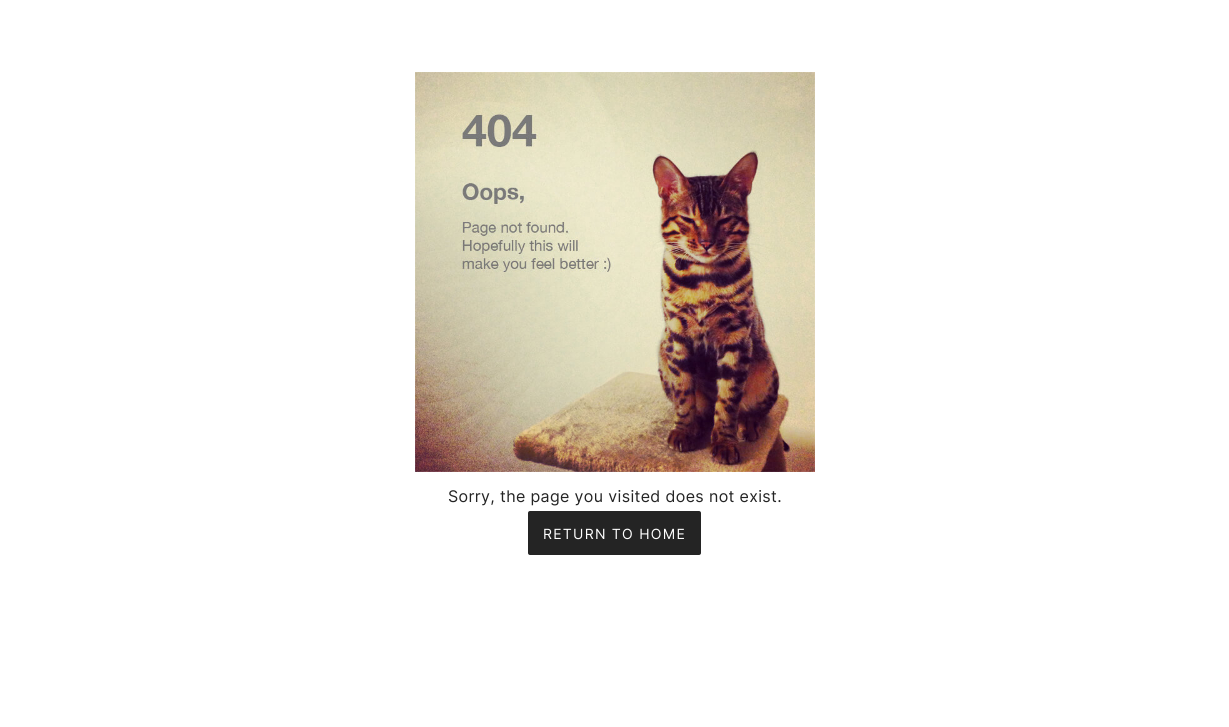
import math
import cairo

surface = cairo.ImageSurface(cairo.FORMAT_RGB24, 1229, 727)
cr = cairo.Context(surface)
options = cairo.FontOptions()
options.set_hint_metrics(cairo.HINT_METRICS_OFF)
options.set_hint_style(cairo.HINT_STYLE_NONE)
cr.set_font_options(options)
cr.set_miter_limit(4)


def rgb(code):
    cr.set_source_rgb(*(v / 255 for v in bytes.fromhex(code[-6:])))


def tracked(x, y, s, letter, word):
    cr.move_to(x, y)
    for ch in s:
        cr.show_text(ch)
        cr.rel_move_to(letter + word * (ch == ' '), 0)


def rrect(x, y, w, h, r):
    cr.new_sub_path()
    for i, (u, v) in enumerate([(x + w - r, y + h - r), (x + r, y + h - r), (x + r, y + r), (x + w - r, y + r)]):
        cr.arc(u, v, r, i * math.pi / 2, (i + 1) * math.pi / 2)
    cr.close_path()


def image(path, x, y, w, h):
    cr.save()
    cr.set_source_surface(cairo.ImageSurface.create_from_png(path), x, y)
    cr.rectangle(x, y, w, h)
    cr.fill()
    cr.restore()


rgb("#ffffff")
cr.paint()
image("img/1.png", 415, 72, 400, 400)
rgb("#242424")
rrect(528, 511, 173, 44, 2)
cr.fill()
cr.select_font_face("Inter")
cr.set_font_size(16)
tracked(448, 502, "Sorry, the page you visited does not exist.", 0.35, 0)
cr.set_font_size(14)
rgb("#ffffff")
tracked(543, 539, "RETURN TO HOME", 1.25, 0)
surface.write_to_png("page.png")
